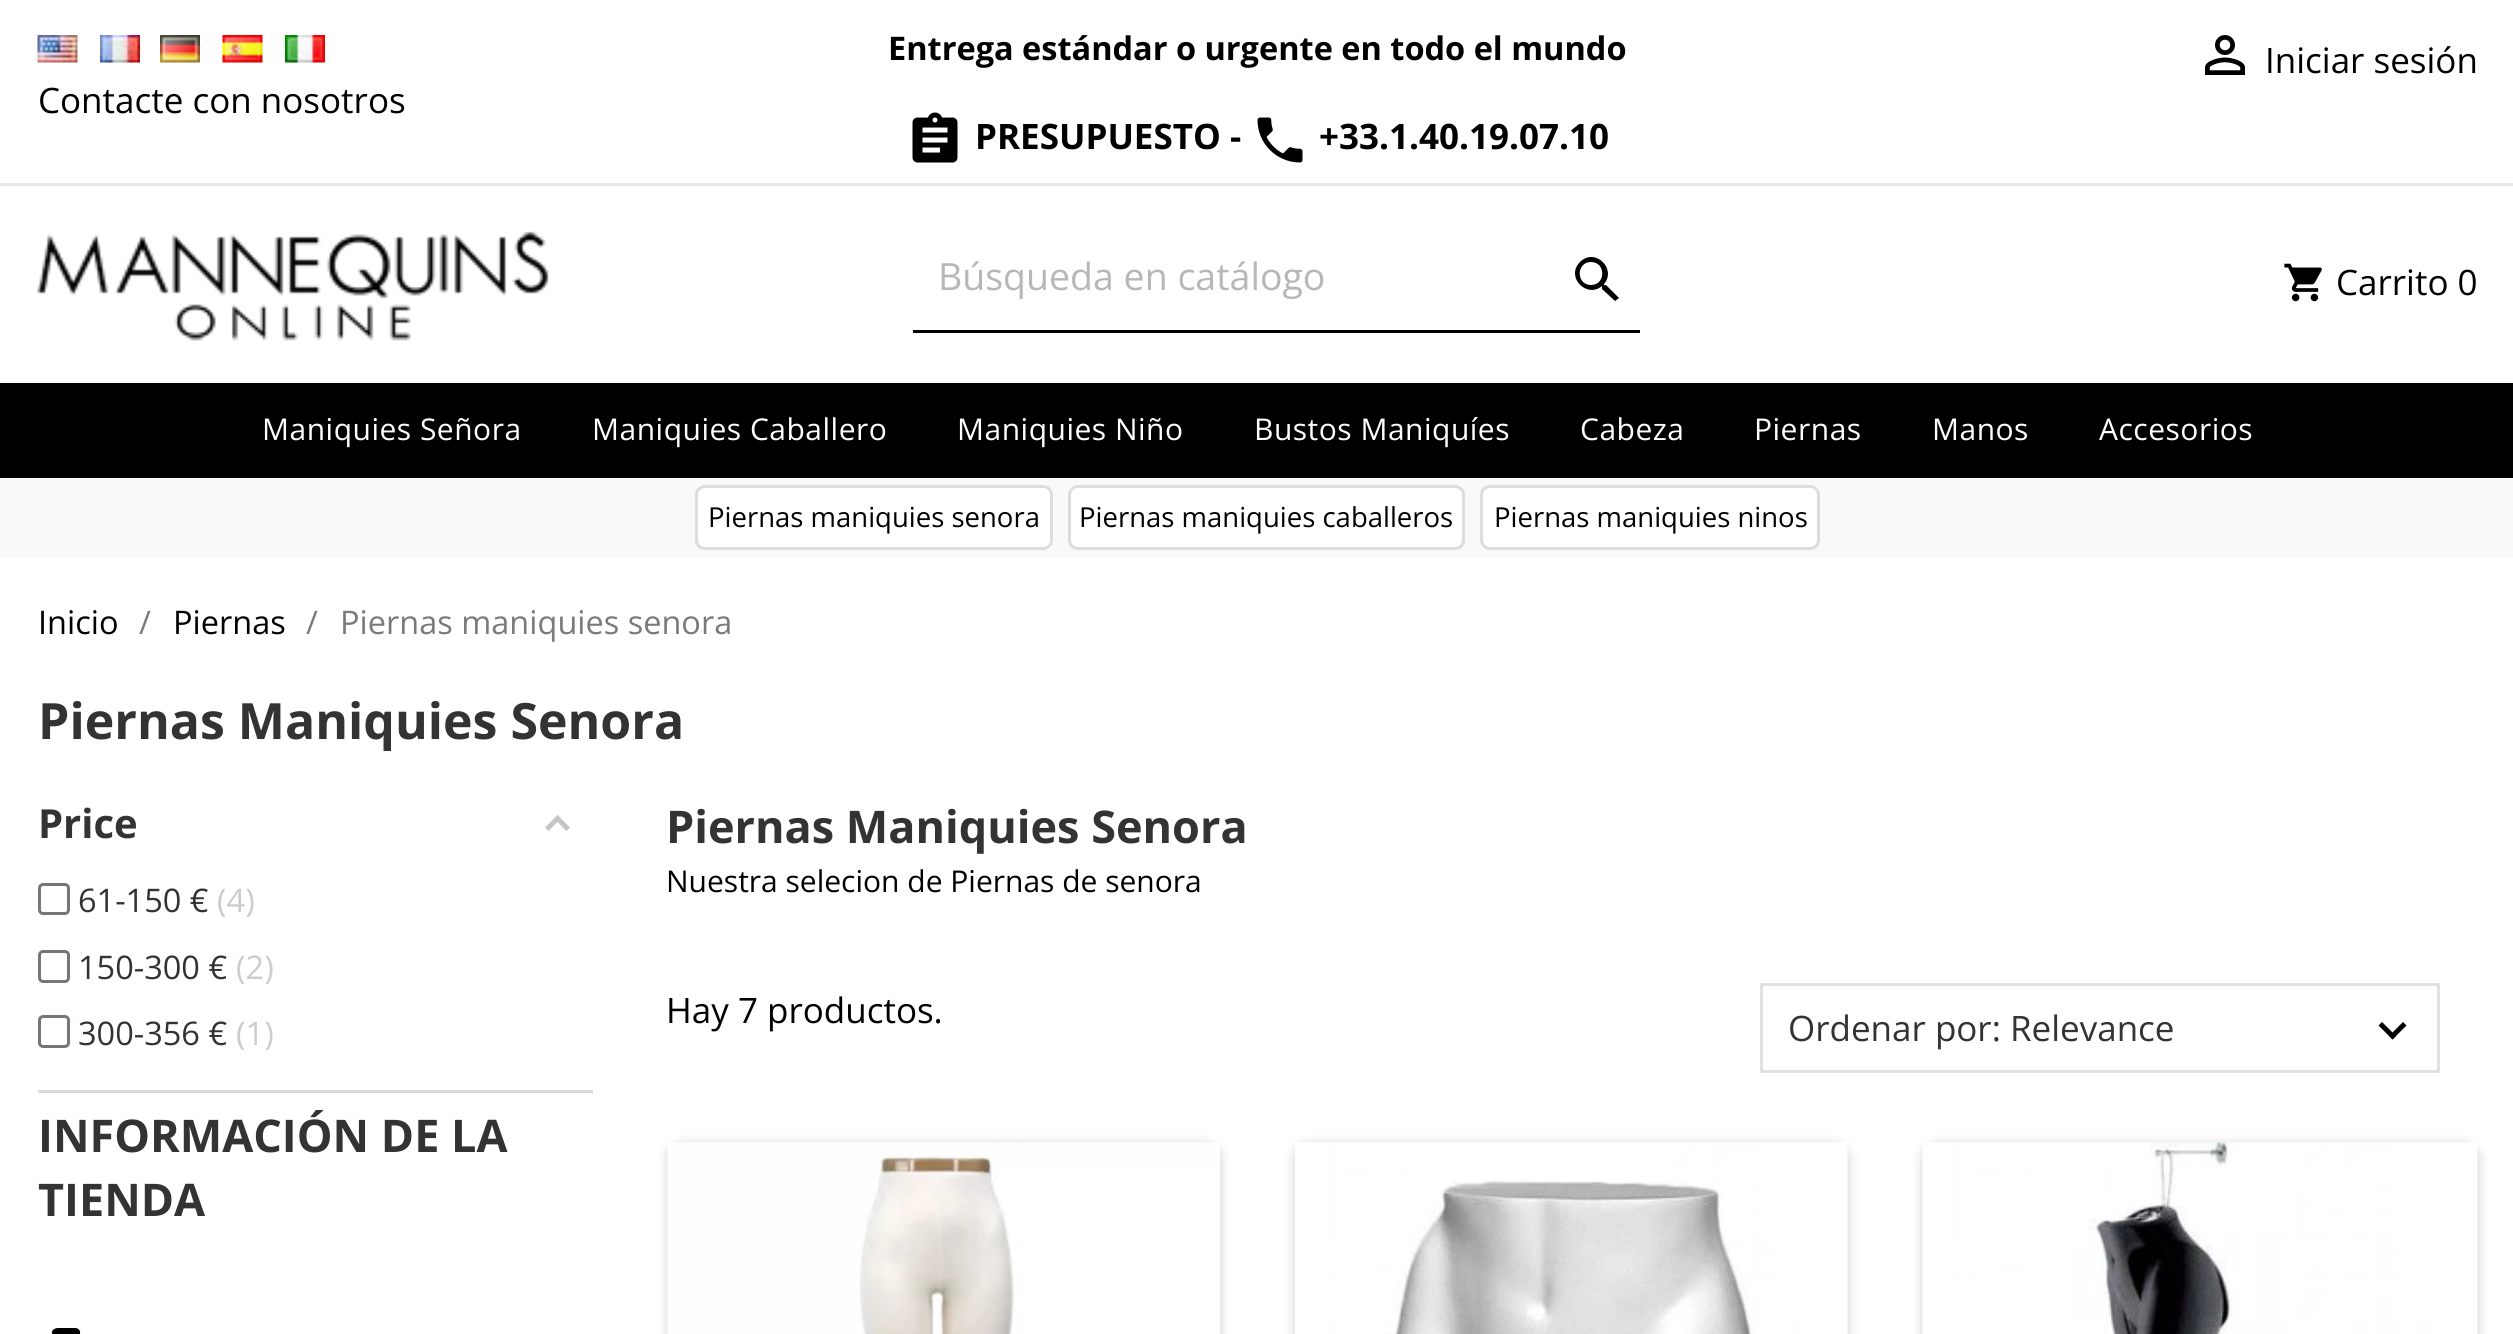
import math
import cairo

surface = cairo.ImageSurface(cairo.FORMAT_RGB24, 2513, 1334)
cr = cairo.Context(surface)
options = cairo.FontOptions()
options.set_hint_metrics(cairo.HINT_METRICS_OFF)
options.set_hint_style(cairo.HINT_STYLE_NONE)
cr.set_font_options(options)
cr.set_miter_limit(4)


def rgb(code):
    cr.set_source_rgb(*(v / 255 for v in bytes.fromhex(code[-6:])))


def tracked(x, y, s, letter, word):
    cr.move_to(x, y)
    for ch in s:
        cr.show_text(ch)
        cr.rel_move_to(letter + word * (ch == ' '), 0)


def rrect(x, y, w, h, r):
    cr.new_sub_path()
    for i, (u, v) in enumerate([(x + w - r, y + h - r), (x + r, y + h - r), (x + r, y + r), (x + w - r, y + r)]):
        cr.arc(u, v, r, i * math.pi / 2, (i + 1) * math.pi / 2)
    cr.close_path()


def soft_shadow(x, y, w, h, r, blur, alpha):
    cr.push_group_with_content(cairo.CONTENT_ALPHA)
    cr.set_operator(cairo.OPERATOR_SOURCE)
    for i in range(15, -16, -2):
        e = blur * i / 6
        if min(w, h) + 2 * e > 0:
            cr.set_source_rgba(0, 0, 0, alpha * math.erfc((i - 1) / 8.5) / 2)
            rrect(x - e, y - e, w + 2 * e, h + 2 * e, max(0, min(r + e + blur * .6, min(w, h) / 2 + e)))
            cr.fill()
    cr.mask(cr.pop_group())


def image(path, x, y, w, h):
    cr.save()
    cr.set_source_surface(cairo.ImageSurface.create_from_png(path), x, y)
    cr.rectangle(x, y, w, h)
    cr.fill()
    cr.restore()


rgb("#ffffff")
cr.paint()
rgb("#e8e8e8")
cr.rectangle(0, 183, 2513, 3)
cr.fill()
image("img/1.png", 912, 112, 46, 51)
image("img/2.png", 1257, 117, 46, 46)
image("img/3.png", 2205, 35, 40, 40)
image("img/4.png", 37, 35, 41, 28)
image("img/5.png", 100, 35, 40, 28)
image("img/6.png", 160, 35, 40, 28)
image("img/7.png", 222, 35, 41, 28)
image("img/8.png", 285, 35, 40, 28)
image("img/9.png", 37, 231, 512, 110)
rgb("#000000")
cr.rectangle(913, 330, 727, 3)
cr.fill()
cr.new_path()
cr.move_to(1606, 285)
cr.line_to(1604, 285)
cr.line_to(1604, 284)
cr.curve_to(1617, 269, 1595, 247, 1580, 262)
cr.curve_to(1565, 277, 1587, 299, 1602, 286)
cr.line_to(1602, 287)
cr.line_to(1602, 289)
cr.line_to(1615, 301)
cr.line_to(1619, 298)
cr.close_path()
cr.move_to(1591, 285)
cr.curve_to(1576, 285, 1576, 262, 1591, 262)
cr.curve_to(1606, 262, 1606, 285, 1591, 285)
cr.close_path()
cr.fill()
image("img/10.png", 2284, 263, 38, 39)
cr.rectangle(0, 383, 2513, 95)
cr.fill()
rgb("#f9f9f9")
cr.rectangle(0, 478, 2513, 80)
cr.fill()
rgb("#ffffff")
rrect(696.5, 486.5, 355, 62, 8.5)
cr.fill_preserve()
rgb("#dddddd")
cr.set_line_width(3)
cr.stroke()
rgb("#ffffff")
rrect(1069.5, 486.5, 394, 62, 8.5)
cr.fill_preserve()
rgb("#dddddd")
cr.stroke()
rgb("#ffffff")
rrect(1481.5, 486.5, 337, 62, 8.5)
cr.fill_preserve()
rgb("#dddddd")
cr.stroke()
rgb("#dadada")
cr.rectangle(38, 1090, 555, 3)
cr.fill()
rgb("#c5c5c5")
cr.new_path()
cr.move_to(557.5, 815)
cr.line_to(570, 827.5)
cr.line_to(566.5, 831)
cr.line_to(554, 818.5)
cr.close_path()
cr.fill()
cr.new_path()
cr.move_to(557.5, 815)
cr.line_to(561, 818.5)
cr.line_to(548.5, 831)
cr.line_to(545, 827.5)
cr.close_path()
cr.fill()
rrect(39.5, 884.5, 29, 29, 3.5)
rgb("#767676")
cr.stroke()
rrect(39.5, 951.5, 29, 30, 3.5)
cr.stroke()
rrect(39.5, 1016.5, 29, 30, 3.5)
cr.stroke()
rgb("#000000")
cr.new_path()
cr.move_to(71, 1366)
cr.curve_to(78, 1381, 89, 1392, 104, 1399)
cr.line_to(115, 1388)
cr.curve_to(116, 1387, 118, 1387, 120, 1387)
cr.curve_to(125, 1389, 131, 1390, 138, 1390)
cr.curve_to(140, 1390, 142, 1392, 142, 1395)
cr.line_to(142, 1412)
cr.curve_to(142, 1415, 140, 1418, 138, 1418)
cr.curve_to(91, 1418, 52, 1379, 52, 1332)
cr.curve_to(52, 1330, 55, 1328, 58, 1328)
cr.line_to(75, 1328)
cr.curve_to(78, 1328, 80, 1330, 80, 1332)
cr.curve_to(80, 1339, 81, 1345, 83, 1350)
cr.curve_to(83, 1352, 83, 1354, 82, 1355)
cr.close_path()
cr.fill()
cr.rectangle(1761.5, 984.5, 677, 87)
rgb("#e1e1e1")
cr.stroke()
rgb("#000000")
cr.new_path()
cr.move_to(2403, 1022)
cr.line_to(2406.5, 1025.5)
cr.line_to(2392.5, 1039.5)
cr.line_to(2389, 1036)
cr.close_path()
cr.fill()
cr.new_path()
cr.move_to(2382, 1022)
cr.line_to(2396, 1036)
cr.line_to(2392.5, 1039.5)
cr.line_to(2378.5, 1025.5)
cr.close_path()
cr.fill()
rgb("#000000")
soft_shadow(668, 1145, 552, 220, 13, 6, 0.2)
image("img/11.png", 667, 1142, 553, 192)
soft_shadow(1295, 1145, 553, 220, 13, 6, 0.2)
image("img/12.png", 1295, 1142, 553, 192)
soft_shadow(1923, 1145, 555, 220, 13, 6, 0.2)
image("img/13.png", 1922, 1142, 556, 192)
cr.select_font_face("Open Sans", cairo.FONT_SLANT_NORMAL, cairo.FONT_WEIGHT_BOLD)
cr.set_font_size(32.5)
rgb("#000000")
cr.move_to(888, 60)
cr.show_text("Entrega estándar o urgente en todo el mundo")
cr.set_font_size(35)
cr.move_to(975, 149)
cr.show_text("PRESUPUESTO -")
cr.move_to(1319, 149)
cr.show_text("+33.1.40.19.07.10")
cr.select_font_face("Open Sans")
cr.move_to(2265, 73)
cr.show_text("Iniciar sesión")
cr.move_to(38, 113)
cr.show_text("Contacte con nosotros")
cr.set_font_size(37.5)
rgb("#b7b7b7")
cr.move_to(938, 290)
cr.show_text("Búsqueda en catálogo")
cr.set_font_size(35)
rgb("#000000")
cr.move_to(2336, 295)
cr.show_text("Carrito 0")
cr.set_font_size(30)
rgb("#ffffff")
for x, y, s in [
    (262, 440, "Maniquies Señora"),
    (592, 440, "Maniquies Caballero"),
    (957, 440, "Maniquies Niño"),
    (1254, 440, "Bustos Maniquíes"),
    (1580, 440, "Cabeza"),
    (1754, 440, "Piernas"),
    (1932, 440, "Manos"),
    (2099, 440, "Accesorios"),
]:
    tracked(x, y, s, 0.5, 0)
cr.set_font_size(27.5)
rgb("#000000")
for x, y, s in [
    (708, 527, "Piernas maniquies senora"),
    (1079, 527, "Piernas maniquies caballeros"),
    (1494, 527, "Piernas maniquies ninos"),
]:
    cr.move_to(x, y)
    cr.show_text(s)
cr.set_font_size(32.5)
cr.move_to(38, 634)
cr.show_text("Inicio")
rgb("#7a7a7a")
cr.move_to(139, 634)
cr.show_text("/")
rgb("#000000")
cr.move_to(173, 634)
cr.show_text("Piernas")
rgb("#7a7a7a")
cr.move_to(306, 634)
cr.show_text("/")
cr.move_to(340, 634)
cr.show_text("Piernas maniquies senora")
cr.select_font_face("Open Sans", cairo.FONT_SLANT_NORMAL, cairo.FONT_WEIGHT_BOLD)
cr.set_font_size(50)
rgb("#333333")
cr.move_to(38, 739)
cr.show_text("Piernas Maniquies Senora")
cr.set_font_size(40)
cr.move_to(38, 838)
cr.show_text("Price")
cr.select_font_face("Open Sans")
cr.set_font_size(32.5)
cr.move_to(78, 912)
cr.show_text("61-150 €")
rgb("#cccccc")
cr.move_to(217, 912)
cr.show_text("(4)")
rgb("#333333")
cr.move_to(78, 979)
cr.show_text("150-300 €")
rgb("#cccccc")
cr.move_to(236, 979)
cr.show_text("(2)")
rgb("#333333")
cr.move_to(78, 1045)
cr.show_text("300-356 €")
rgb("#cccccc")
cr.move_to(236, 1045)
cr.show_text("(1)")
cr.select_font_face("Open Sans", cairo.FONT_SLANT_NORMAL, cairo.FONT_WEIGHT_BOLD)
cr.set_font_size(45)
rgb("#333333")
for x, y, s in [
    (38, 1152, "INFORMACIÓN DE LA"),
    (38, 1216, "TIENDA"),
    (666, 843, "Piernas Maniquies Senora"),
]:
    cr.move_to(x, y)
    cr.show_text(s)
cr.select_font_face("Open Sans")
cr.set_font_size(30)
rgb("#000000")
cr.move_to(666, 892)
cr.show_text("Nuestra selecion de Piernas de senora")
cr.set_font_size(35)
cr.move_to(666, 1023)
cr.show_text("Hay 7 productos.")
rgb("#333333")
cr.move_to(1788, 1041)
cr.show_text("Ordenar por: Relevance")
surface.write_to_png("page.png")
